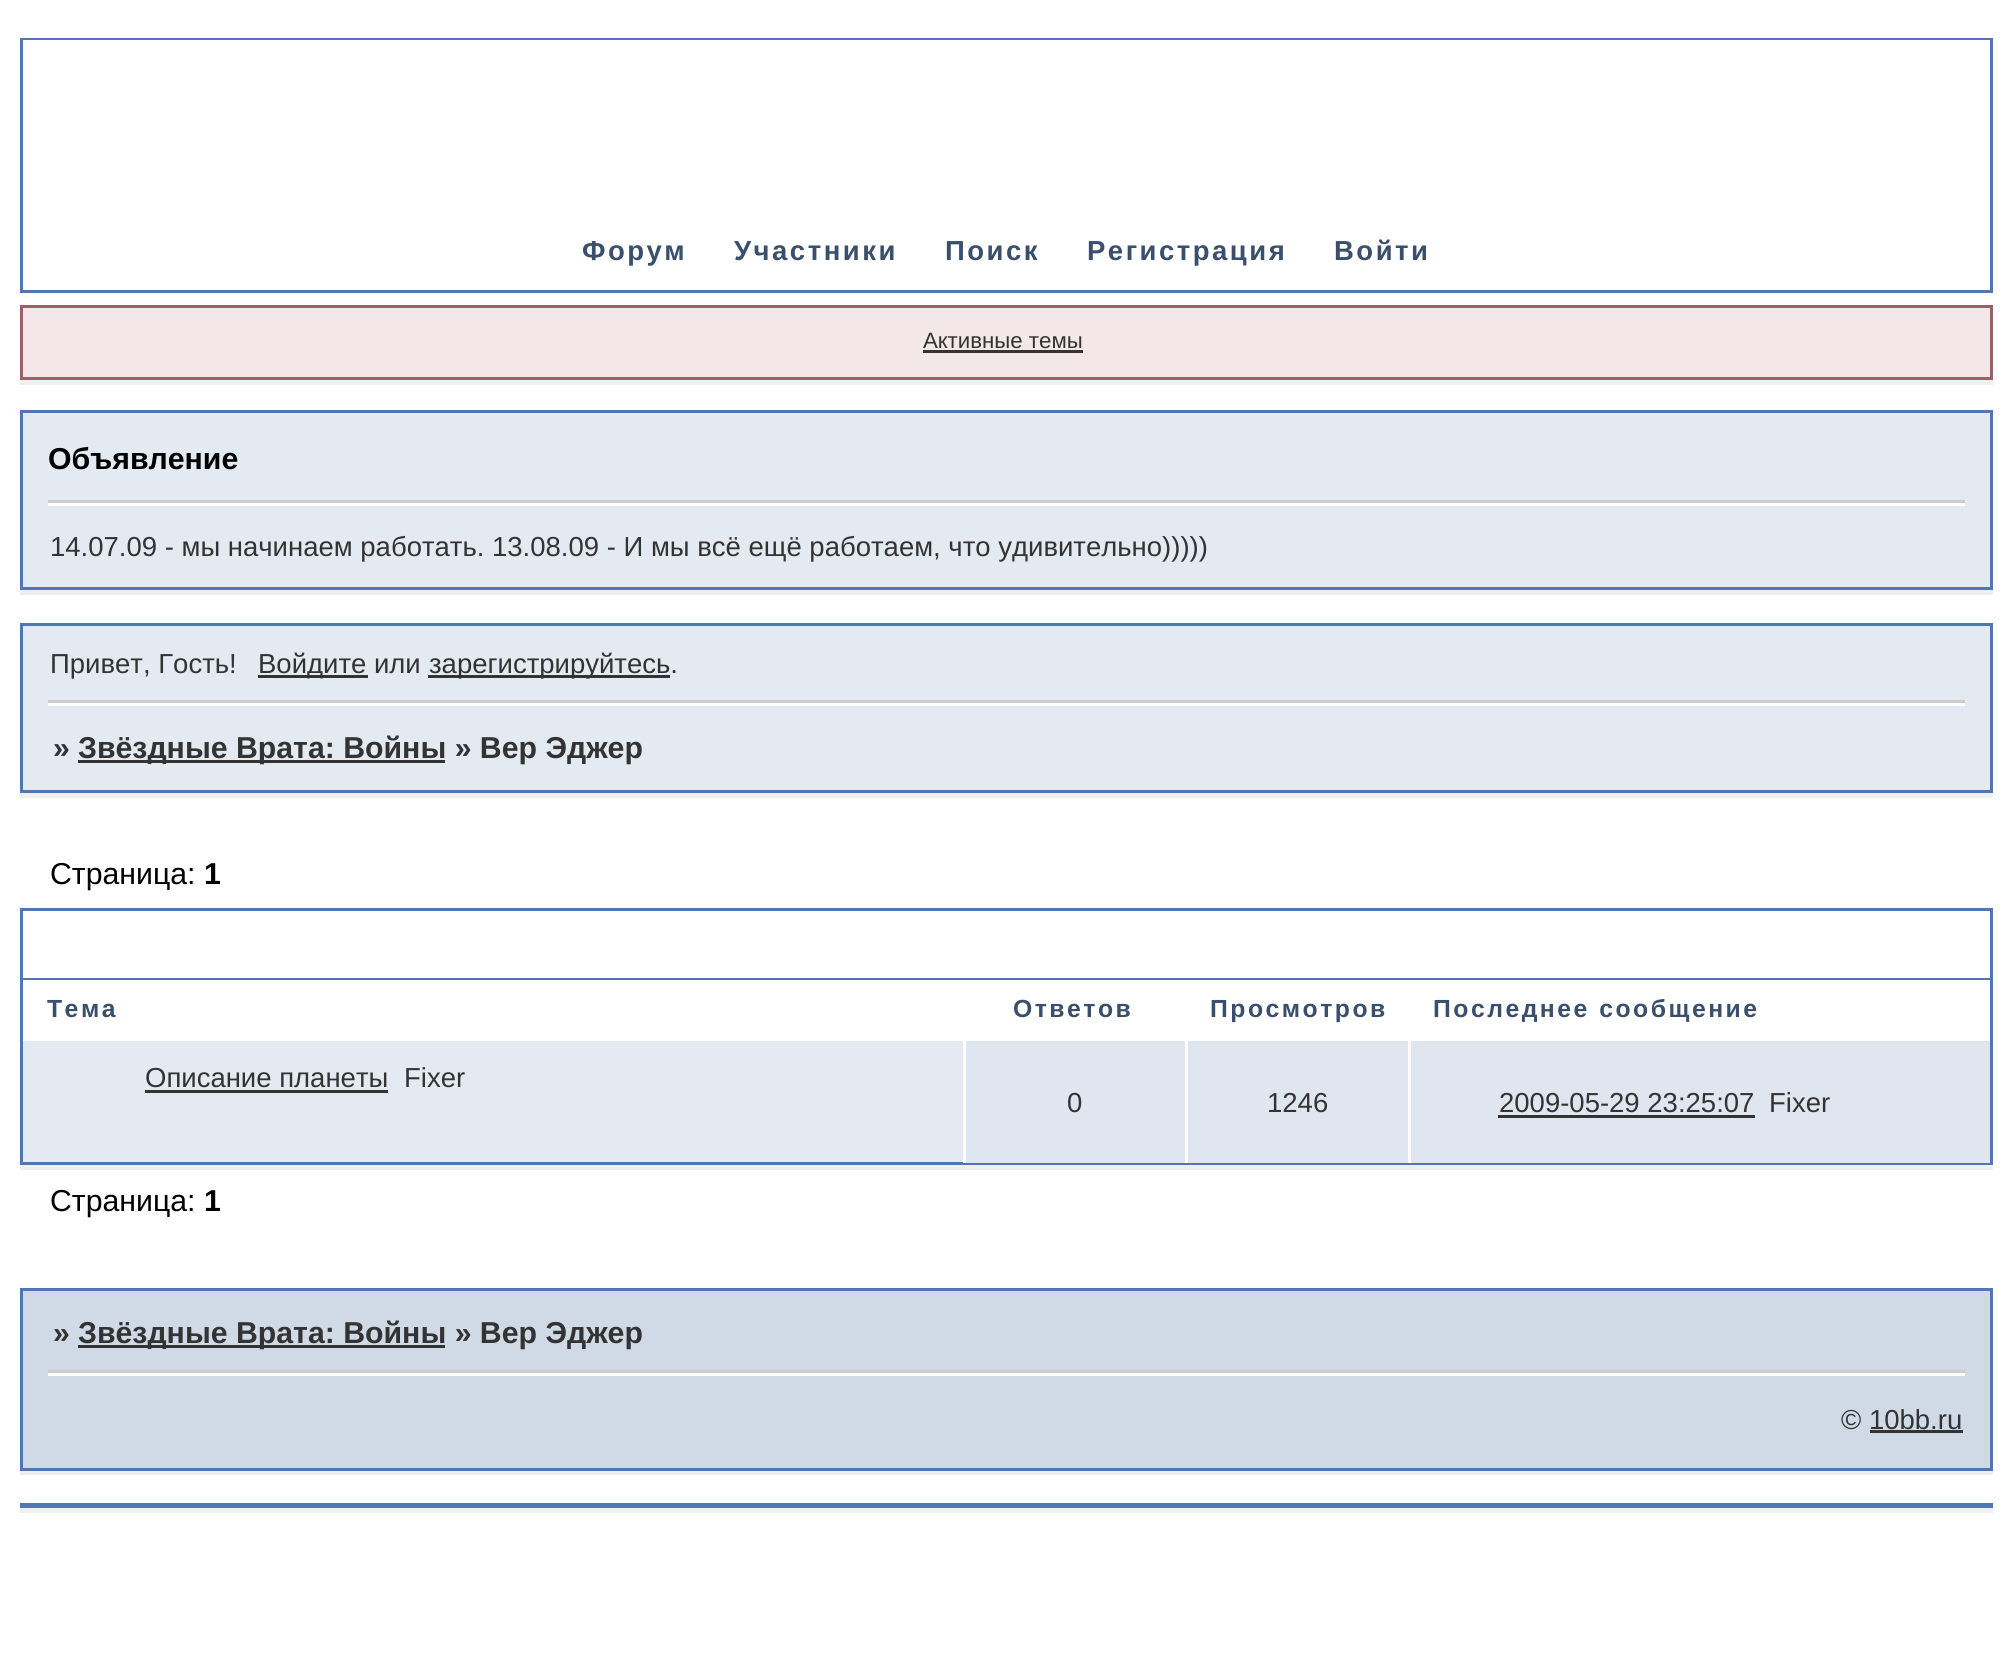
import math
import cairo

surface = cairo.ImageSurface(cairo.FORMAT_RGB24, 2011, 1671)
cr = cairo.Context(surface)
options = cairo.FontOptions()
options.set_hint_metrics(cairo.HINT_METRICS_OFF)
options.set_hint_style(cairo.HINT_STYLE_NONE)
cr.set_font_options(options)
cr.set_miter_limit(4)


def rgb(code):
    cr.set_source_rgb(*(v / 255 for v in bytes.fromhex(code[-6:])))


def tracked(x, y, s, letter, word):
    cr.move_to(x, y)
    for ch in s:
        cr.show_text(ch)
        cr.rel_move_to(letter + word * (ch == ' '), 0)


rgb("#ffffff")
cr.paint()
for x, y, w, h, color in [
    (20, 38, 1973, 2, "#5176b5"),
    (1990, 38, 3, 255, "#5176b5"),
    (20, 38, 3, 255, "#5176b5"),
    (23, 290, 1967, 3, "#5176b5"),
    (20, 380, 1973, 5, "#efefef"),
]:
    rgb(color)
    cr.rectangle(x, y, w, h)
    cr.fill()
rgb("#f4e7ea")
cr.rectangle(21.5, 306.5, 1970, 72)
cr.fill_preserve()
rgb("#986265")
cr.set_line_width(3)
cr.stroke()
rgb("#333333")
cr.rectangle(923, 350, 160, 3)
cr.fill()
rgb("#efefef")
cr.rectangle(20, 590, 1973, 5)
cr.fill()
rgb("#e4eaf2")
cr.rectangle(21.5, 411.5, 1970, 177)
cr.fill_preserve()
rgb("#5176b5")
cr.stroke()
for x, y, w, h, color in [
    (48, 503, 1917, 3, "#ffffff"),
    (48, 500, 1917, 3, "#cccccc"),
    (23, 626, 1967, 164, "#e4eaf2"),
    (20, 623, 1973, 3, "#5176b5"),
    (1990, 623, 3, 170, "#5176b5"),
    (20, 623, 3, 82, "#5176b5"),
    (258, 675, 110, 3, "#333333"),
    (428, 675, 242, 3, "#333333"),
    (48, 700, 1917, 3, "#cccccc"),
    (48, 703, 1917, 3, "#ffffff"),
    (20, 793, 1973, 5, "#efefef"),
    (20, 790, 1973, 3, "#5176b5"),
    (20, 700, 3, 93, "#5176b5"),
    (78, 760, 367, 3, "#333333"),
    (20, 908, 1973, 3, "#5176b5"),
    (1990, 908, 3, 70, "#5176b5"),
    (20, 908, 3, 70, "#5176b5"),
    (20, 1165, 1973, 5, "#efefef"),
    (23, 1041, 940, 121, "#e4eaf2"),
]:
    rgb(color)
    cr.rectangle(x, y, w, h)
    cr.fill()
cr.rectangle(21.5, 979.5, 1970, 184)
rgb("#5176b5")
cr.stroke()
for x, y, w, h, color in [
    (23, 980, 1967, 1, "#ffffff"),
    (145, 1090, 243, 3, "#333333"),
    (966, 1041, 219, 122, "#dfe6ef"),
    (963, 1162, 3, 1, "#ffffff"),
    (1188, 1041, 220, 122, "#dfe6ef"),
    (1185, 1162, 3, 1, "#ffffff"),
    (1411, 1041, 579, 122, "#dfe6ef"),
    (1408, 1162, 3, 1, "#ffffff"),
    (1498, 1115, 257, 3, "#333333"),
    (20, 1288, 1973, 3, "#5176b5"),
    (1990, 1370, 3, 100, "#5176b5"),
    (1990, 1288, 3, 87, "#5176b5"),
    (20, 1468, 1973, 3, "#5176b5"),
    (20, 1370, 3, 100, "#5176b5"),
    (20, 1288, 3, 87, "#5176b5"),
    (23, 1291, 1967, 177, "#d0dae7"),
    (78, 1345, 367, 3, "#333333"),
    (48, 1370, 1917, 3, "#cccccc"),
    (48, 1373, 1917, 3, "#ffffff"),
    (20, 1471, 1973, 4, "#efefef"),
    (1870, 1430, 93, 3, "#333333"),
    (20, 1508, 1973, 5, "#efefef"),
    (20, 1503, 1973, 5, "#5176b5"),
]:
    rgb(color)
    cr.rectangle(x, y, w, h)
    cr.fill()
cr.select_font_face("Liberation Sans", cairo.FONT_SLANT_NORMAL, cairo.FONT_WEIGHT_BOLD)
cr.set_font_size(27.5)
rgb("#3a4f6c")
for x, y, s in [
    (582, 260, "Форум"),
    (734, 260, "Участники"),
    (945, 260, "Поиск"),
    (1087, 260, "Регистрация"),
    (1334, 260, "Войти"),
]:
    tracked(x, y, s, 2.5, 0)
cr.select_font_face("Liberation Sans")
cr.set_font_size(22.25)
rgb("#333333")
cr.move_to(923, 348)
cr.show_text("Активные темы")
cr.select_font_face("Liberation Sans", cairo.FONT_SLANT_NORMAL, cairo.FONT_WEIGHT_BOLD)
cr.set_font_size(30.25)
rgb("#000000")
cr.move_to(48, 469)
cr.show_text("Объявление")
cr.select_font_face("Liberation Sans")
cr.set_font_size(27.5)
rgb("#333333")
for x, y, s in [
    (50, 556, "14.07.09 - мы начинаем работать. 13.08.09 - И мы всё ещё работаем, что удивительно)))))"),
    (50, 673, "Привет, Гость!"),
    (258, 673, "Войдите или"),
    (429, 673, "зарегистрируйтесь."),
]:
    cr.move_to(x, y)
    cr.show_text(s)
cr.select_font_face("Liberation Sans", cairo.FONT_SLANT_NORMAL, cairo.FONT_WEIGHT_BOLD)
cr.set_font_size(30.25)
cr.move_to(53, 758)
cr.show_text("»")
cr.move_to(78, 758)
cr.show_text("Звёздные Врата: Войны » Вер Эджер")
cr.select_font_face("Liberation Sans")
rgb("#000000")
cr.move_to(50, 884)
cr.show_text("Страница:")
cr.select_font_face("Liberation Sans", cairo.FONT_SLANT_NORMAL, cairo.FONT_WEIGHT_BOLD)
cr.move_to(204, 884)
cr.show_text("1")
cr.set_font_size(24.75)
rgb("#3a4f6c")
for x, y, s in [
    (47, 1017, "Тема"),
    (1013, 1017, "Ответов"),
    (1210, 1017, "Просмотров"),
    (1433, 1017, "Последнее сообщение"),
]:
    tracked(x, y, s, 2.5, 0)
cr.select_font_face("Liberation Sans")
cr.set_font_size(27.5)
rgb("#333333")
for x, y, s in [
    (145, 1087, "Описание планеты"),
    (404, 1087, "Fixer"),
    (1067, 1112, "0"),
    (1267, 1112, "1246"),
    (1499, 1112, "2009-05-29 23:25:07"),
    (1769, 1112, "Fixer"),
]:
    cr.move_to(x, y)
    cr.show_text(s)
cr.set_font_size(30.25)
rgb("#000000")
cr.move_to(50, 1211)
cr.show_text("Страница:")
cr.select_font_face("Liberation Sans", cairo.FONT_SLANT_NORMAL, cairo.FONT_WEIGHT_BOLD)
cr.move_to(204, 1211)
cr.show_text("1")
rgb("#333333")
cr.move_to(53, 1343)
cr.show_text("»")
cr.move_to(78, 1343)
cr.show_text("Звёздные Врата: Войны » Вер Эджер")
cr.select_font_face("Liberation Sans")
cr.set_font_size(27.5)
cr.move_to(1841, 1429)
cr.show_text("© 10bb.ru")
surface.write_to_png("page.png")
